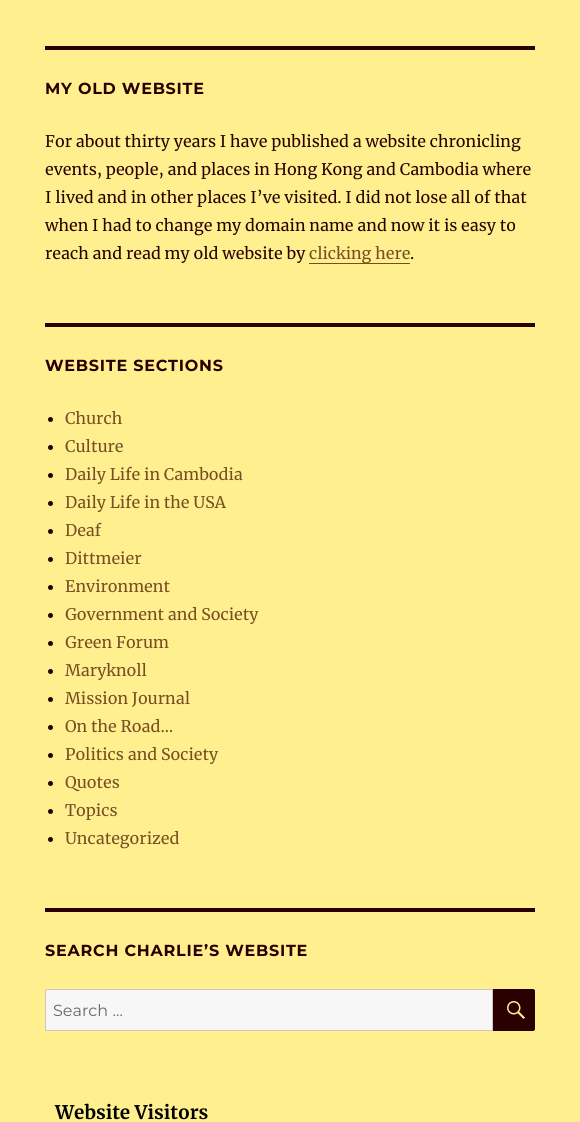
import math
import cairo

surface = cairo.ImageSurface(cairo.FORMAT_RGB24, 580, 1122)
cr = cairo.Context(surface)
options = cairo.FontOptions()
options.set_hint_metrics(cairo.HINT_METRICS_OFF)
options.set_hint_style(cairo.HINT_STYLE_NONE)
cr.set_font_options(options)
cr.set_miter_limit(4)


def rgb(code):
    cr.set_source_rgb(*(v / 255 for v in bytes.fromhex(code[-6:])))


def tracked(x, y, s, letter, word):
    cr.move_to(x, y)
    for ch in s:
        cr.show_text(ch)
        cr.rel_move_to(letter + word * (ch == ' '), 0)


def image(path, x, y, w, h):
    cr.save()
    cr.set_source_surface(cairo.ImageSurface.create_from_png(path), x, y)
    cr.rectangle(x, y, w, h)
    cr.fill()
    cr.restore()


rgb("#ffef8e")
cr.paint()
for x, y, w, h, color in [
    (45, 46, 490, 4, "#2b0000"),
    (309, 263, 101, 1, "#774e24"),
    (45, 323, 490, 4, "#2b0000"),
]:
    rgb(color)
    cr.rectangle(x, y, w, h)
    cr.fill()
cr.arc(50.5, 419.5, 2.5, 0, 2 * math.pi)
cr.fill()
cr.arc(50.5, 447.5, 2.5, 0, 2 * math.pi)
cr.fill()
cr.arc(50.5, 475.5, 2.5, 0, 2 * math.pi)
cr.fill()
cr.arc(50.5, 503.5, 2.5, 0, 2 * math.pi)
cr.fill()
cr.arc(50.5, 531.5, 2.5, 0, 2 * math.pi)
cr.fill()
cr.arc(50.5, 559.5, 2.5, 0, 2 * math.pi)
cr.fill()
cr.arc(50.5, 587.5, 2.5, 0, 2 * math.pi)
cr.fill()
cr.arc(50.5, 615.5, 2.5, 0, 2 * math.pi)
cr.fill()
cr.arc(50.5, 643.5, 2.5, 0, 2 * math.pi)
cr.fill()
cr.arc(50.5, 671.5, 2.5, 0, 2 * math.pi)
cr.fill()
cr.arc(50.5, 699.5, 2.5, 0, 2 * math.pi)
cr.fill()
cr.arc(50.5, 727.5, 2.5, 0, 2 * math.pi)
cr.fill()
cr.arc(50.5, 755.5, 2.5, 0, 2 * math.pi)
cr.fill()
cr.arc(50.5, 783.5, 2.5, 0, 2 * math.pi)
cr.fill()
cr.arc(50.5, 811.5, 2.5, 0, 2 * math.pi)
cr.fill()
cr.arc(50.5, 839.5, 2.5, 0, 2 * math.pi)
cr.fill()
cr.rectangle(45, 908, 490, 4)
cr.fill()
rgb("#f7f7f7")
cr.new_path()
cr.move_to(47, 989)
cr.line_to(493, 989)
cr.line_to(493, 1031)
cr.line_to(47, 1031)
cr.curve_to(46, 1031, 45, 1030, 45, 1029)
cr.line_to(45, 991)
cr.curve_to(45, 990, 46, 989, 47, 989)
cr.close_path()
cr.fill()
cr.new_path()
cr.move_to(47, 989.5)
cr.line_to(492.5, 989.5)
cr.line_to(492.5, 1030.5)
cr.line_to(47, 1030.5)
cr.curve_to(46, 1030.5, 45.5, 1030, 45.5, 1029)
cr.line_to(45.5, 991)
cr.curve_to(45.5, 990, 46, 989.5, 47, 989.5)
cr.close_path()
cr.set_source_rgba(0.169, 0, 0, 0.2)
cr.set_line_width(1)
cr.stroke()
rgb("#2b0000")
cr.new_path()
cr.move_to(493, 989)
cr.line_to(533, 989)
cr.curve_to(534, 989, 535, 990, 535, 991)
cr.line_to(535, 1029)
cr.curve_to(535, 1030, 534, 1031, 533, 1031)
cr.line_to(493, 1031)
cr.close_path()
cr.fill()
image("img/1.png", 507, 1001, 18, 18)
cr.select_font_face("Montserrat Thin")
cr.set_font_size(16)
tracked(45, 94, "MY OLD WEBSITE", 0.75, 0)
cr.select_font_face("Merriweather")
for x, y, s in [
    (45, 147, "For about thirty years I have published a website chronicling"),
    (45, 175, "events, people, and places in Hong Kong and Cambodia where"),
    (45, 203, "I lived and in other places I’ve visited. I did not lose all of that"),
    (45, 231, "when I had to change my domain name and now it is easy to"),
    (45, 259, "reach and read my old website by"),
]:
    cr.move_to(x, y)
    cr.show_text(s)
rgb("#774e24")
cr.move_to(309, 259)
cr.show_text("clicking here")
rgb("#2b0000")
cr.move_to(410, 259)
cr.show_text(".")
cr.select_font_face("Montserrat Thin")
tracked(45, 371, "WEBSITE SECTIONS", 0.75, 0)
cr.select_font_face("Merriweather")
rgb("#774e24")
for x, y, s in [
    (65, 424, "Church"),
    (65, 452, "Culture"),
    (65, 480, "Daily Life in Cambodia"),
    (65, 508, "Daily Life in the USA"),
    (65, 536, "Deaf"),
    (65, 564, "Dittmeier"),
    (65, 592, "Environment"),
    (65, 620, "Government and Society"),
    (65, 648, "Green Forum"),
    (65, 676, "Maryknoll"),
    (65, 704, "Mission Journal"),
    (65, 732, "On the Road…"),
    (65, 760, "Politics and Society"),
    (65, 788, "Quotes"),
    (65, 816, "Topics"),
    (65, 844, "Uncategorized"),
]:
    cr.move_to(x, y)
    cr.show_text(s)
cr.select_font_face("Montserrat Thin")
rgb("#2b0000")
tracked(45, 956, "SEARCH CHARLIE’S WEBSITE", 0.75, 0)
cr.select_font_face("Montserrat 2 Thin")
rgb("#686868")
cr.move_to(53, 1016)
cr.show_text("Search …")
cr.select_font_face("Merriweather", cairo.FONT_SLANT_NORMAL, cairo.FONT_WEIGHT_BOLD)
cr.set_font_size(18.75)
rgb("#000000")
cr.move_to(55, 1119)
cr.show_text("Website Visitors")
surface.write_to_png("page.png")
